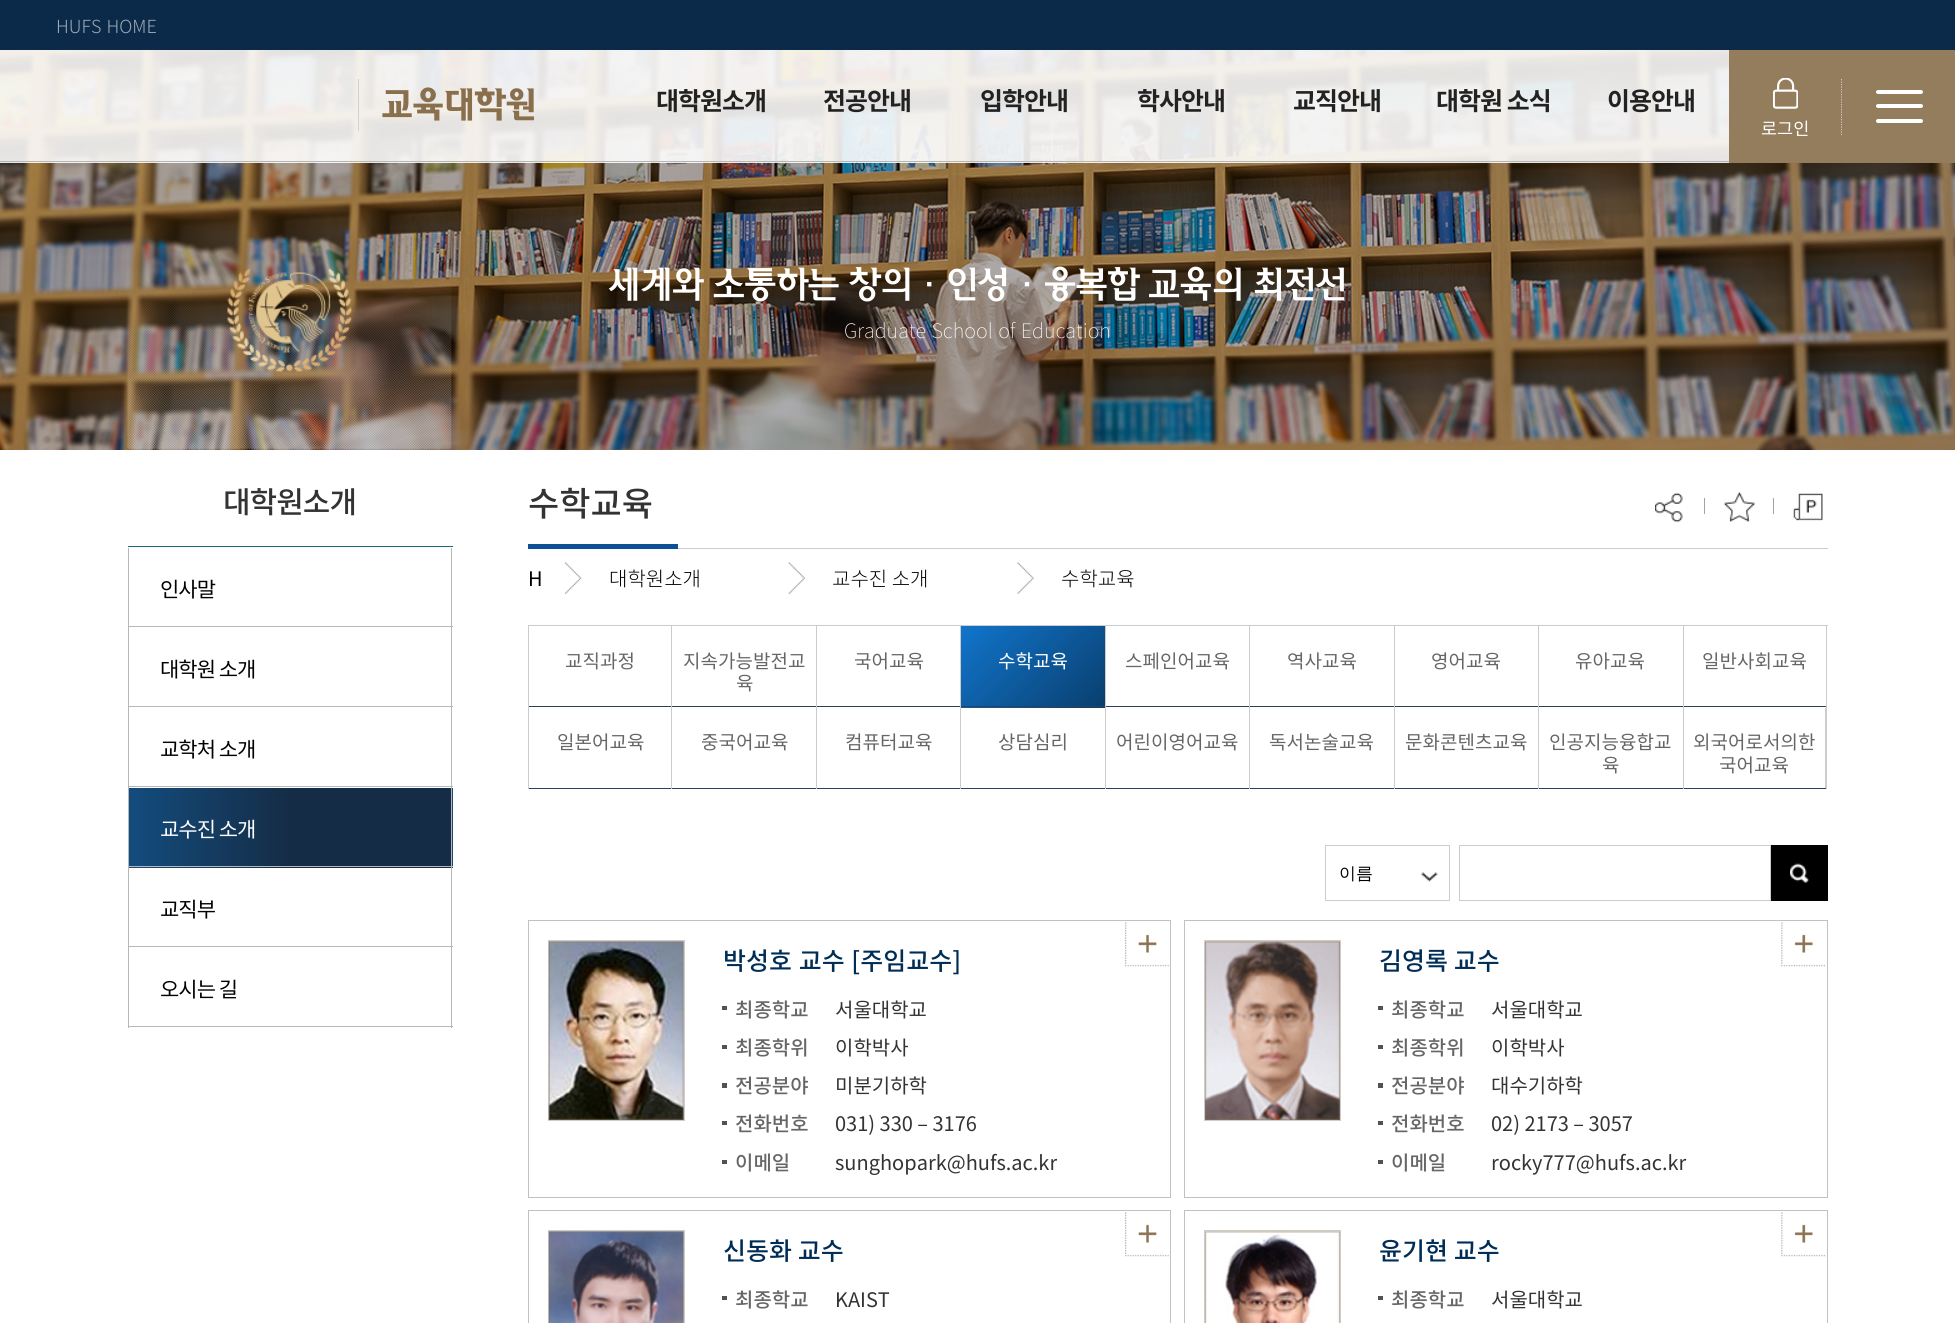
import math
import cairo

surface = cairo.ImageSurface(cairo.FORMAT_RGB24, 1955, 1323)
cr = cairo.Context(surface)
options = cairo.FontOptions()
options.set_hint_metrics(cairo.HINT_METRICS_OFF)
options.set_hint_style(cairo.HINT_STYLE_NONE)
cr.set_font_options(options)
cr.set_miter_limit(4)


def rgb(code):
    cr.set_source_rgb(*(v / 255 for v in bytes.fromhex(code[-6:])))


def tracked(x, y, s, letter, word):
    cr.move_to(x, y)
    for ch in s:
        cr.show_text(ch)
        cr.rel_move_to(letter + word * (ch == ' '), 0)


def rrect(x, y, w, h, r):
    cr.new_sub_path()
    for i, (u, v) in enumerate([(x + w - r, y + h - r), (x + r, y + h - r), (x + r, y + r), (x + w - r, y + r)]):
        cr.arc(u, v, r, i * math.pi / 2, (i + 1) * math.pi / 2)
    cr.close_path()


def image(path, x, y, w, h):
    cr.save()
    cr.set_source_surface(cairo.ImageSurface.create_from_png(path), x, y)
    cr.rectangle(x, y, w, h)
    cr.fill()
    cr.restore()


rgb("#ffffff")
cr.paint()
rgb("#0b2a4a")
cr.rectangle(0, 0, 1955, 50)
cr.fill()
image("img/2.png", 0, 50, 1955, 400)
cr.set_source_rgba(1, 1, 1, 0.88)
cr.rectangle(0, 50, 1729, 113)
cr.fill()
rgb("#b6b5b5")
cr.rectangle(0, 161, 1729, 1)
cr.fill()
rgb("#cfd1d2")
cr.rectangle(358, 79, 1, 52)
cr.fill()
rgb("#947d5d")
cr.rectangle(1729, 50, 226, 113)
cr.fill()
rgb("#ffffff")
rrect(1876, 90, 47, 4, 2)
cr.fill()
rrect(1876, 104, 47, 4, 2)
cr.fill()
rrect(1876, 119, 47, 4, 2)
cr.fill()
cr.save()
cr.rectangle(1841, 79, 1, 56)
cr.clip()
cr.new_path()
cr.move_to(1842, 79)
cr.line_to(1842, 135)
cr.set_line_width(1.2)
cr.set_dash([1.25, 1.25])
cr.stroke()
cr.restore()
image("img/1.png", 1773, 78, 25, 31)
image("img/3.png", 127, 268, 325, 181)
for x, y, w, h, color in [
    (128, 546, 325, 1, "#146e7a"),
    (451, 548, 1, 480, "#b7b7b7"),
    (128, 626, 325, 1, "#b7b7b7"),
    (128, 548, 1, 80, "#b7b7b7"),
    (128, 706, 325, 1, "#b7b7b7"),
    (128, 628, 1, 80, "#b7b7b7"),
    (128, 786, 325, 1, "#b7b7b7"),
    (128, 708, 1, 80, "#b7b7b7"),
]:
    rgb(color)
    cr.rectangle(x, y, w, h)
    cr.fill()
gradient = cairo.LinearGradient(451, 827, 129, 827)
gradient.add_color_stop_rgba(0.5, 0.082, 0.173, 0.275, 1)
gradient.add_color_stop_rgba(1, 0.075, 0.298, 0.49, 1)
cr.set_source(gradient)
cr.rectangle(129, 788, 322, 80)
cr.fill()
gradient = cairo.LinearGradient(774, 827, 451, 827)
gradient.add_color_stop_rgba(0.5, 0.082, 0.173, 0.275, 1)
gradient.add_color_stop_rgba(1, 0.075, 0.298, 0.49, 1)
cr.set_source(gradient)
cr.rectangle(452, 788, 1, 80)
cr.fill()
for x, y, w, h, color in [
    (128, 866, 325, 1, "#b7b7b7"),
    (128, 788, 1, 80, "#b7b7b7"),
    (128, 946, 325, 1, "#b7b7b7"),
    (128, 868, 1, 80, "#b7b7b7"),
    (128, 1026, 325, 1, "#b7b7b7"),
    (128, 948, 1, 80, "#b7b7b7"),
    (678, 548, 1150, 1, "#cccccc"),
    (528, 544, 150, 5, "#0c5097"),
    (528, 625, 1300, 1, "#cccccc"),
    (1826, 625, 1, 164, "#cccccc"),
]:
    rgb(color)
    cr.rectangle(x, y, w, h)
    cr.fill()
gradient = cairo.LinearGradient(976, 610, 1089, 723)
gradient.add_color_stop_rgba(0, 0.067, 0.459, 0.8, 1)
gradient.add_color_stop_rgba(1, 0.035, 0.247, 0.431, 1)
cr.set_source(gradient)
cr.rectangle(961, 626, 144, 82)
cr.fill()
for x, y, w, h, color in [
    (528, 706, 1298, 1, "#2b405b"),
    (528, 626, 1, 82, "#cccccc"),
    (671, 626, 1, 82, "#cccccc"),
    (816, 626, 1, 82, "#cccccc"),
    (960, 626, 1, 82, "#cccccc"),
    (1105, 626, 1, 82, "#cccccc"),
    (1249, 626, 1, 82, "#cccccc"),
    (1394, 626, 1, 82, "#cccccc"),
    (1538, 626, 1, 82, "#cccccc"),
    (1683, 626, 1, 82, "#cccccc"),
    (528, 788, 1155, 1, "#2b405b"),
    (528, 708, 1, 81, "#cccccc"),
    (671, 708, 1, 81, "#cccccc"),
    (816, 708, 1, 81, "#cccccc"),
    (960, 708, 1, 81, "#cccccc"),
    (1105, 708, 1, 81, "#cccccc"),
    (1249, 708, 1, 81, "#cccccc"),
    (1394, 708, 1, 81, "#cccccc"),
    (1538, 708, 1, 81, "#cccccc"),
    (1825, 708, 1, 81, "#cccccc"),
    (1683, 788, 143, 1, "#2b405b"),
    (1683, 708, 1, 81, "#cccccc"),
]:
    rgb(color)
    cr.rectangle(x, y, w, h)
    cr.fill()
image("img/4.png", 1421, 872, 17, 10)
cr.rectangle(1325.5, 845.5, 124, 55)
cr.set_line_width(1)
cr.stroke()
cr.rectangle(1459.5, 845.5, 311, 55)
cr.stroke()
rgb("#000000")
cr.rectangle(1771, 845, 57, 56)
cr.fill()
image("img/5.png", 1790, 863, 19, 20)
image("img/6.png", 1125, 922, 44, 45)
cr.rectangle(528.5, 920.5, 642, 277)
rgb("#c2c0c0")
cr.stroke()
cr.rectangle(548.5, 940.5, 136, 180)
rgb("#cccccc")
cr.stroke()
image("img/7.png", 548, 941, 136, 179)
for x, y, w, h, color in [
    (722, 1006, 5, 4, "#525252"),
    (722, 1045, 5, 4, "#525252"),
    (722, 1083, 5, 5, "#525252"),
    (722, 1121, 5, 4, "#525252"),
    (722, 1160, 5, 4, "#525252"),
]:
    rgb(color)
    cr.rectangle(x, y, w, h)
    cr.fill()
image("img/8.png", 1781, 922, 45, 45)
cr.rectangle(1184.5, 920.5, 643, 277)
rgb("#c2c0c0")
cr.stroke()
cr.rectangle(1204.5, 940.5, 136, 180)
rgb("#cccccc")
cr.stroke()
image("img/9.png", 1205, 941, 135, 179)
for x, y, w, h, color in [
    (1378, 1006, 5, 4, "#525252"),
    (1378, 1045, 5, 4, "#525252"),
    (1378, 1083, 5, 5, "#525252"),
    (1378, 1121, 5, 4, "#525252"),
    (1378, 1160, 5, 4, "#525252"),
]:
    rgb(color)
    cr.rectangle(x, y, w, h)
    cr.fill()
image("img/6.png", 1125, 1212, 44, 45)
cr.rectangle(528.5, 1210.5, 642, 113)
rgb("#c2c0c0")
cr.stroke()
cr.rectangle(548.5, 1230.5, 136, 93)
rgb("#cccccc")
cr.stroke()
image("img/10.png", 548, 1231, 136, 92)
rgb("#525252")
cr.rectangle(722, 1296, 5, 4)
cr.fill()
image("img/8.png", 1781, 1212, 45, 45)
cr.rectangle(1184.5, 1210.5, 643, 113)
rgb("#c2c0c0")
cr.stroke()
cr.rectangle(1204.5, 1230.5, 136, 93)
rgb("#cccccc")
cr.stroke()
image("img/11.png", 1205, 1231, 135, 92)
rgb("#525252")
cr.rectangle(1378, 1296, 5, 4)
cr.fill()
image("img/12.png", 1655, 492, 28, 31)
rgb("#a3a3a3")
cr.rectangle(1704, 498, 1, 16)
cr.fill()
image("img/13.png", 1723, 492, 32, 30)
cr.rectangle(1773, 498, 1, 16)
cr.fill()
image("img/14.png", 1793, 493, 30, 28)
image("img/15.png", 565, 562, 17, 32)
image("img/16.png", 788, 562, 17, 32)
image("img/17.png", 1017, 562, 17, 32)
cr.select_font_face("Noto Sans KR Light")
cr.set_font_size(18)
rgb("#9daab7")
tracked(56, 33, "HUFS HOME", 0, 1)
cr.select_font_face("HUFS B")
cr.set_font_size(35)
rgb("#896f4c")
tracked(381, 115, "교육대학원", -1.25, 0)
cr.select_font_face("Noto Sans KR", cairo.FONT_SLANT_NORMAL, cairo.FONT_WEIGHT_BOLD)
cr.set_font_size(25)
rgb("#222222")
for x, y, s in [
    (656, 110, "대학원소개"),
    (823, 110, "전공안내"),
    (980, 110, "입학안내"),
    (1137, 110, "학사안내"),
    (1293, 110, "교직안내"),
    (1436, 110, "대학원 소식"),
    (1607, 110, "이용안내"),
]:
    tracked(x, y, s, -1, 0)
cr.select_font_face("Noto Sans KR")
cr.set_font_size(17.5)
rgb("#ffffff")
cr.move_to(1761, 135)
cr.show_text("로그인")
cr.select_font_face("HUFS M")
cr.set_font_size(36)
tracked(608, 295, "세계와 소통하는 창의·인성·융복합 교육의 최전선", -1.5, 0)
cr.select_font_face("Noto Sans KR Thin")
cr.set_font_size(20)
tracked(844, 338, "Graduate School of Education", 0, 1)
cr.select_font_face("Noto Sans KR Medium")
cr.set_font_size(30)
rgb("#333333")
tracked(223, 513, "대학원소개", -1, 0)
cr.select_font_face("Noto Sans KR")
cr.set_font_size(21)
rgb("#000000")
for x, y, s in [
    (160, 597, "인사말"),
    (160, 677, "대학원 소개"),
    (160, 757, "교학처 소개"),
]:
    tracked(x, y, s, -1, 0)
rgb("#ffffff")
tracked(160, 837, "교수진 소개", -1, 0)
rgb("#000000")
tracked(160, 917, "교직부", -1, 0)
tracked(160, 997, "오시는 길", -1, 0)
cr.select_font_face("Noto Sans KR Medium")
cr.set_font_size(34)
rgb("#333333")
cr.move_to(528, 516)
cr.show_text("수학교육")
cr.select_font_face("Noto Sans KR")
cr.set_font_size(19)
rgb("#666666")
for x, y, s in [
    (565, 668, "교직과정"),
    (683, 668, "지속가능발전교"),
    (736, 690, "육"),
    (854, 668, "국어교육"),
]:
    cr.move_to(x, y)
    cr.show_text(s)
rgb("#ffffff")
cr.move_to(998, 668)
cr.show_text("수학교육")
rgb("#666666")
for x, y, s in [
    (1125, 668, "스페인어교육"),
    (1287, 668, "역사교육"),
    (1431, 668, "영어교육"),
    (1575, 668, "유아교육"),
    (1702, 668, "일반사회교육"),
    (557, 749, "일본어교육"),
    (701, 749, "중국어교육"),
    (845, 749, "컴퓨터교육"),
    (998, 749, "상담심리"),
    (1116, 749, "어린이영어교육"),
    (1269, 749, "독서논술교육"),
    (1405, 749, "문화콘텐츠교육"),
    (1549, 749, "인공지능융합교"),
    (1602, 772, "육"),
    (1693, 749, "외국어로서의한"),
    (1719, 772, "국어교육"),
]:
    cr.move_to(x, y)
    cr.show_text(s)
cr.select_font_face("WenQuanYi Zen Hei Medium")
cr.set_font_size(17)
rgb("#000000")
cr.move_to(1339, 879)
cr.show_text("이름")
cr.select_font_face("Noto Sans KR Medium")
cr.set_font_size(25)
rgb("#002d56")
tracked(723, 970, "박성호 교수 [주임교수]", 0, 1)
cr.set_font_size(20)
rgb("#666666")
cr.move_to(735, 1017)
cr.show_text("최종학교")
cr.select_font_face("Noto Sans KR")
rgb("#333333")
cr.move_to(835, 1017)
cr.show_text("서울대학교")
cr.select_font_face("Noto Sans KR Medium")
rgb("#666666")
cr.move_to(735, 1055)
cr.show_text("최종학위")
cr.select_font_face("Noto Sans KR")
rgb("#333333")
cr.move_to(835, 1055)
cr.show_text("이학박사")
cr.select_font_face("Noto Sans KR Medium")
rgb("#666666")
cr.move_to(735, 1093)
cr.show_text("전공분야")
cr.select_font_face("Noto Sans KR")
rgb("#333333")
cr.move_to(835, 1093)
cr.show_text("미분기하학")
cr.select_font_face("Noto Sans KR Medium")
rgb("#666666")
cr.move_to(735, 1131)
cr.show_text("전화번호")
cr.select_font_face("Noto Sans KR")
rgb("#333333")
cr.move_to(835, 1131)
cr.show_text("031) 330 – 3176")
cr.select_font_face("Noto Sans KR Medium")
rgb("#666666")
cr.move_to(735, 1170)
cr.show_text("이메일")
cr.select_font_face("Noto Sans KR")
rgb("#333333")
cr.move_to(835, 1170)
cr.show_text("sunghopark@hufs.ac.kr")
cr.select_font_face("Noto Sans KR Medium")
cr.set_font_size(25)
rgb("#002d56")
cr.move_to(1379, 970)
cr.show_text("김영록 교수")
cr.set_font_size(20)
rgb("#666666")
cr.move_to(1391, 1017)
cr.show_text("최종학교")
cr.select_font_face("Noto Sans KR")
rgb("#333333")
cr.move_to(1491, 1017)
cr.show_text("서울대학교")
cr.select_font_face("Noto Sans KR Medium")
rgb("#666666")
cr.move_to(1391, 1055)
cr.show_text("최종학위")
cr.select_font_face("Noto Sans KR")
rgb("#333333")
cr.move_to(1491, 1055)
cr.show_text("이학박사")
cr.select_font_face("Noto Sans KR Medium")
rgb("#666666")
cr.move_to(1391, 1093)
cr.show_text("전공분야")
cr.select_font_face("Noto Sans KR")
rgb("#333333")
cr.move_to(1491, 1093)
cr.show_text("대수기하학")
cr.select_font_face("Noto Sans KR Medium")
rgb("#666666")
cr.move_to(1391, 1131)
cr.show_text("전화번호")
cr.select_font_face("Noto Sans KR")
rgb("#333333")
cr.move_to(1491, 1131)
cr.show_text("02) 2173 – 3057")
cr.select_font_face("Noto Sans KR Medium")
rgb("#666666")
cr.move_to(1391, 1170)
cr.show_text("이메일")
cr.select_font_face("Noto Sans KR")
rgb("#333333")
cr.move_to(1491, 1170)
cr.show_text("rocky777@hufs.ac.kr")
cr.select_font_face("Noto Sans KR Medium")
cr.set_font_size(25)
rgb("#002d56")
cr.move_to(723, 1260)
cr.show_text("신동화 교수")
cr.set_font_size(20)
rgb("#666666")
cr.move_to(735, 1307)
cr.show_text("최종학교")
cr.select_font_face("Noto Sans KR")
rgb("#333333")
cr.move_to(835, 1307)
cr.show_text("KAIST")
cr.select_font_face("Noto Sans KR Medium")
cr.set_font_size(25)
rgb("#002d56")
cr.move_to(1379, 1260)
cr.show_text("윤기현 교수")
cr.set_font_size(20)
rgb("#666666")
cr.move_to(1391, 1307)
cr.show_text("최종학교")
cr.select_font_face("Noto Sans KR")
rgb("#333333")
cr.move_to(1491, 1307)
cr.show_text("서울대학교")
rgb("#000000")
cr.move_to(528, 586)
cr.show_text("H")
cr.select_font_face("Noto Sans KR Light")
for x, y, s in [
    (609, 586, "대학원소개"),
    (832, 586, "교수진 소개"),
    (1061, 586, "수학교육"),
]:
    cr.move_to(x, y)
    cr.show_text(s)
surface.write_to_png("page.png")
